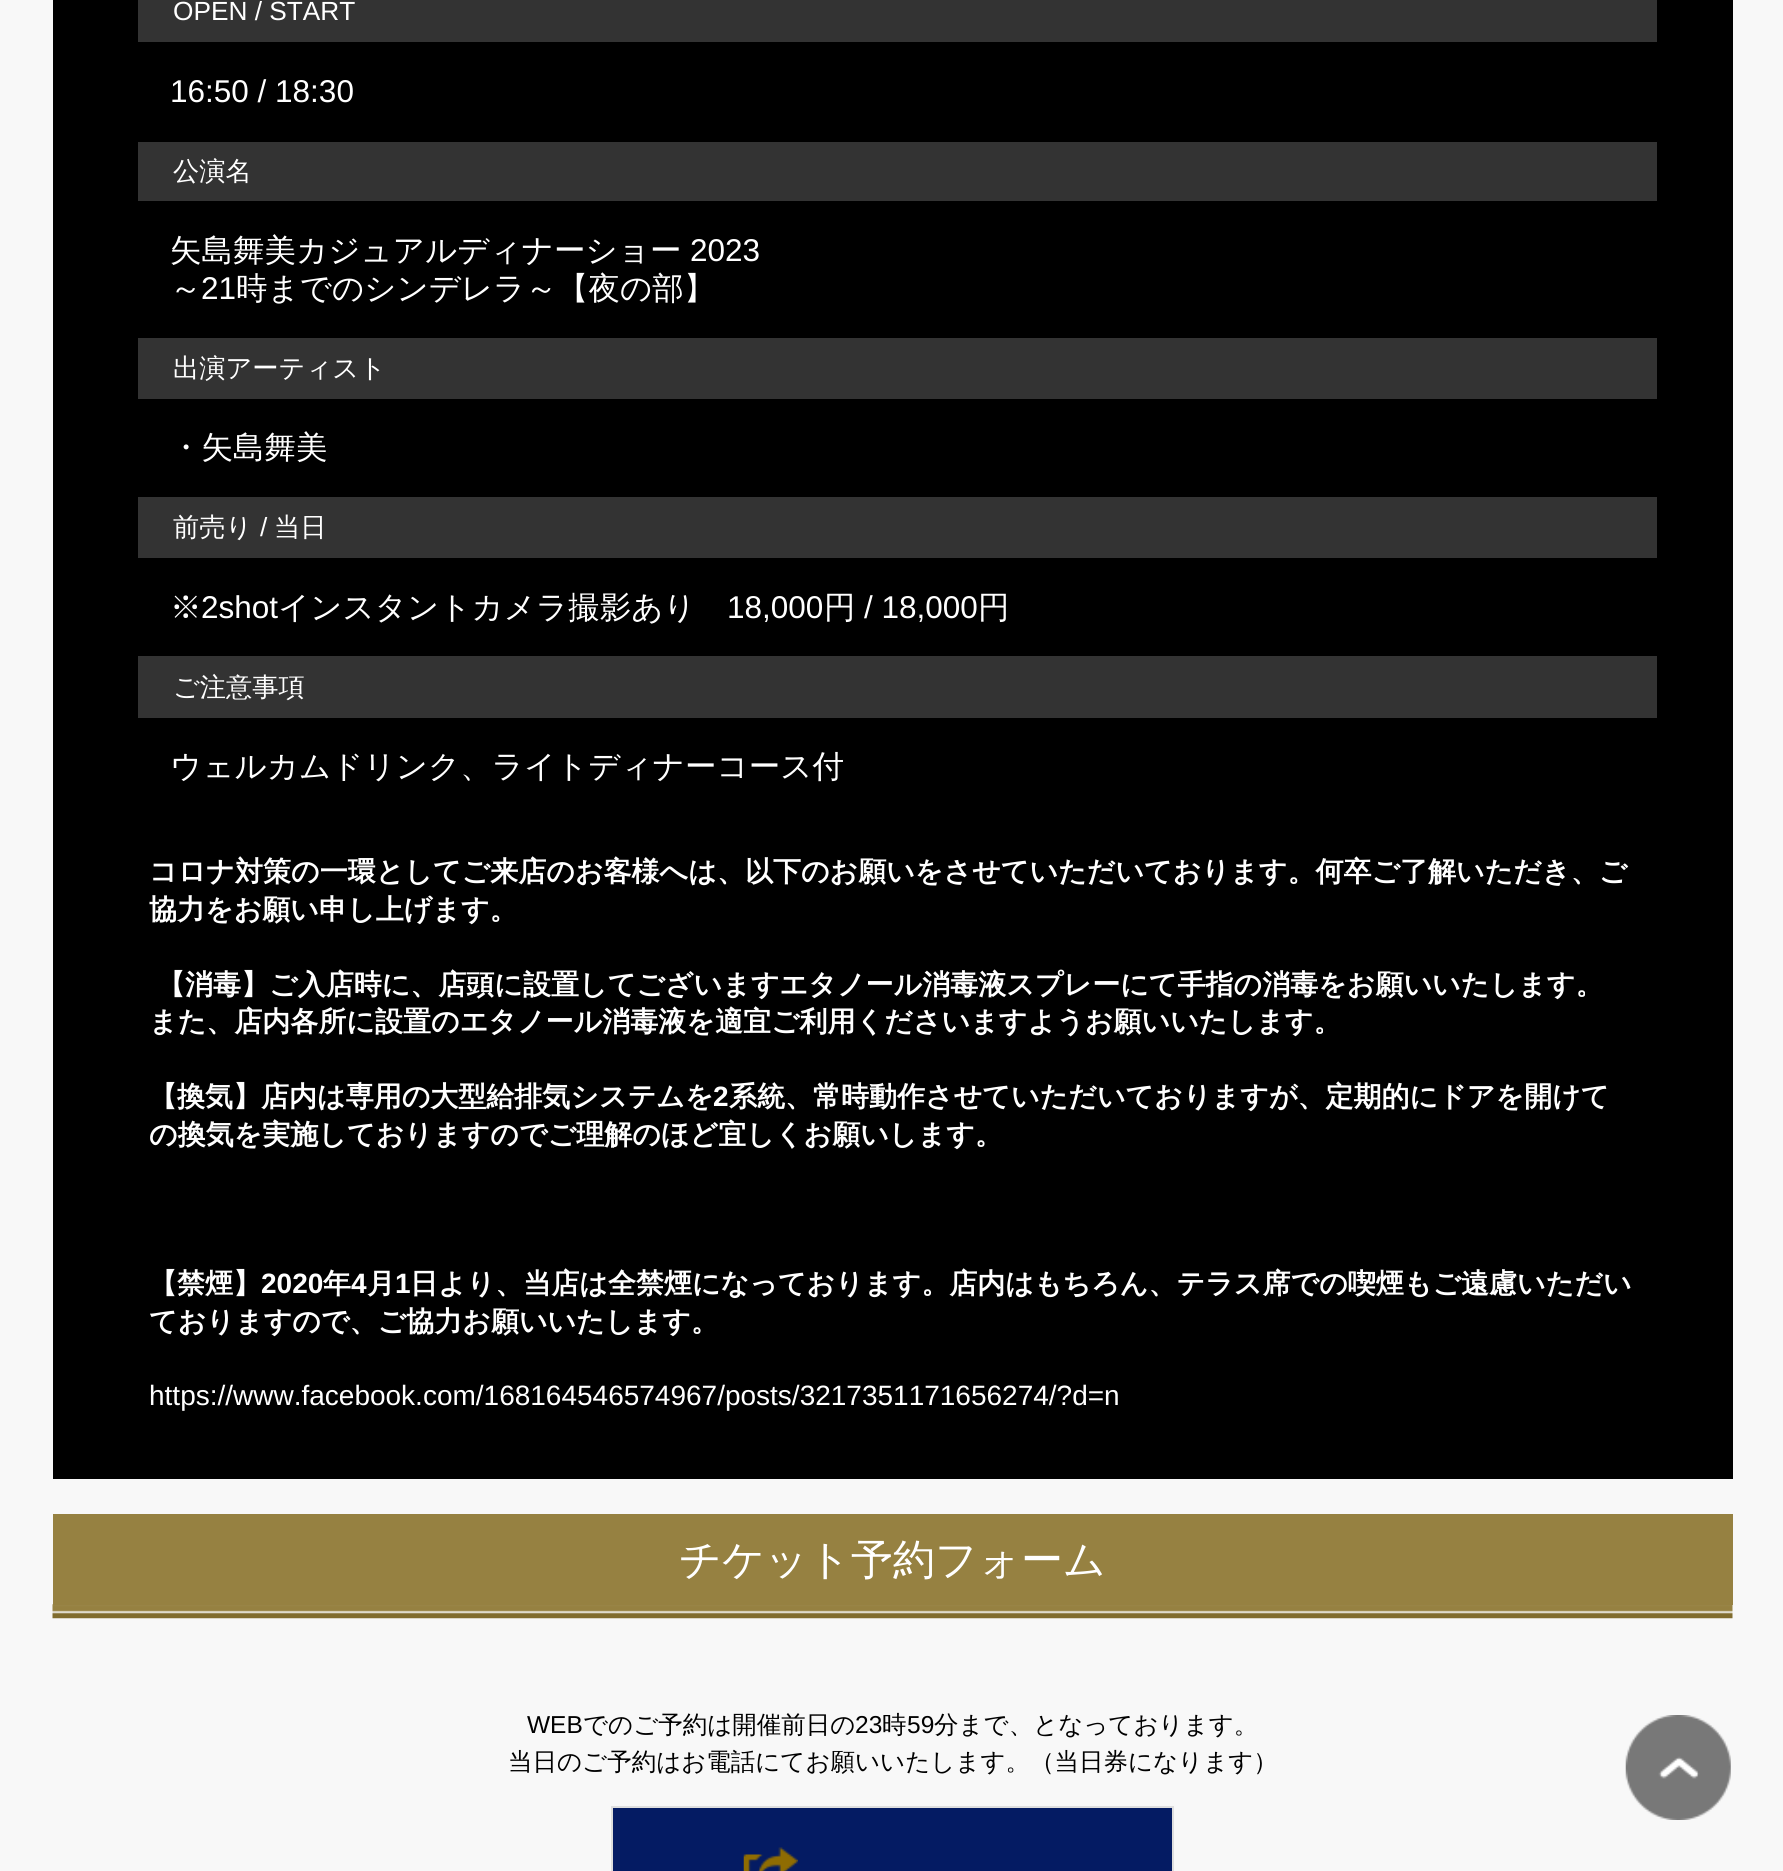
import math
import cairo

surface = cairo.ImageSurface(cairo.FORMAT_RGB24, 1783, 1871)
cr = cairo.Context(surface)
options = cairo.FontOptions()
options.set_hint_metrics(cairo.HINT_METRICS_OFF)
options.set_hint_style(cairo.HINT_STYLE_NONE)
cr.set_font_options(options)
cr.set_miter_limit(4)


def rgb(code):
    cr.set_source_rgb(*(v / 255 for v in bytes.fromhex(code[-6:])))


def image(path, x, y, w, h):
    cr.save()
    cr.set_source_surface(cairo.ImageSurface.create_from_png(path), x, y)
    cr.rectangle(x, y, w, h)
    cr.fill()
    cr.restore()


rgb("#f8f8f8")
cr.paint()
for x, y, w, h, color in [
    (53, 0, 1680, 1479, "#000000"),
    (138, 0, 1519, 42, "#333333"),
    (138, 142, 1519, 59, "#333333"),
    (138, 338, 1519, 61, "#333333"),
    (138, 497, 1519, 61, "#333333"),
    (138, 656, 1519, 62, "#333333"),
]:
    rgb(color)
    cr.rectangle(x, y, w, h)
    cr.fill()
image("img/1.png", 52, 1604, 1681, 15)
rgb("#968141")
cr.rectangle(53, 1514, 1680, 91)
cr.fill()
rgb("#041b63")
cr.rectangle(612, 1807, 561, 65)
cr.fill_preserve()
rgb("#dedede")
cr.stroke()
image("img/2.png", 743, 1847, 55, 24)
image("img/3.png", 1625, 1715, 106, 105)
cr.select_font_face("Liberation Sans")
cr.set_font_size(26.25)
rgb("#ffffff")
cr.move_to(173, 20)
cr.show_text("OPEN / START")
cr.set_font_size(31.5)
cr.move_to(170, 102)
cr.show_text("16:50 / 18:30")
cr.select_font_face("WenQuanYi Zen Hei Medium")
cr.set_font_size(26.25)
cr.move_to(173, 180)
cr.show_text("公演名")
cr.set_font_size(31.5)
cr.move_to(170, 261)
cr.show_text("矢島舞美カジュアルディナーショー")
cr.select_font_face("Liberation Sans")
cr.move_to(690, 261)
cr.show_text("2023")
cr.select_font_face("WenQuanYi Zen Hei Medium")
cr.move_to(170, 299)
cr.show_text("～")
cr.select_font_face("Liberation Sans")
cr.move_to(201, 299)
cr.show_text("21")
cr.select_font_face("WenQuanYi Zen Hei Medium")
cr.move_to(236, 299)
cr.show_text("時までのシンデレラ～【夜の部】")
cr.set_font_size(26.25)
cr.move_to(173, 377)
cr.show_text("出演アーティスト")
cr.set_font_size(31.5)
cr.move_to(170, 458)
cr.show_text("・矢島舞美")
cr.set_font_size(26.25)
cr.move_to(173, 536)
cr.show_text("前売り")
cr.select_font_face("Liberation Sans")
cr.move_to(260, 536)
cr.show_text("/")
cr.select_font_face("WenQuanYi Zen Hei Medium")
cr.move_to(274, 536)
cr.show_text("当日")
cr.set_font_size(31.5)
cr.move_to(170, 618)
cr.show_text("※")
cr.select_font_face("Liberation Sans")
cr.move_to(201, 618)
cr.show_text("2shot")
cr.select_font_face("WenQuanYi Zen Hei Medium")
cr.move_to(278, 618)
cr.show_text("インスタントカメラ撮影あり")
cr.select_font_face("Liberation Sans")
cr.move_to(727, 618)
cr.show_text("18,000")
cr.select_font_face("WenQuanYi Zen Hei Medium")
cr.move_to(824, 618)
cr.show_text("円")
cr.select_font_face("Liberation Sans")
cr.move_to(864, 618)
cr.show_text("/ 18,000")
cr.select_font_face("WenQuanYi Zen Hei Medium")
cr.move_to(978, 618)
cr.show_text("円")
cr.set_font_size(26.25)
cr.move_to(173, 696)
cr.show_text("ご注意事項")
cr.set_font_size(31.5)
cr.move_to(170, 777)
cr.show_text("ウェルカムドリンク、ライトディナーコース付")
cr.select_font_face("WenQuanYi Zen Hei", cairo.FONT_SLANT_NORMAL, cairo.FONT_WEIGHT_BOLD)
cr.set_font_size(28)
for x, y, s in [
    (149, 881, "コロナ対策の一環としてご来店のお客様へは、以下のお願いをさせていただいております。何卒ご了解いただき、ご"),
    (149, 919, "協力をお願い申し上げます。"),
    (157, 994, "【消毒】ご入店時に、店頭に設置してございますエタノール消毒液スプレーにて手指の消毒をお願いいたします。"),
    (149, 1031, "また、店内各所に設置のエタノール消毒液を適宜ご利用くださいますようお願いいたします。"),
    (149, 1106, "【換気】店内は専用の大型給排気システムを"),
]:
    cr.move_to(x, y)
    cr.show_text(s)
cr.select_font_face("Liberation Sans", cairo.FONT_SLANT_NORMAL, cairo.FONT_WEIGHT_BOLD)
cr.move_to(713, 1106)
cr.show_text("2")
cr.select_font_face("WenQuanYi Zen Hei", cairo.FONT_SLANT_NORMAL, cairo.FONT_WEIGHT_BOLD)
for x, y, s in [
    (729, 1106, "系統、常時動作させていただいておりますが、定期的にドアを開けて"),
    (149, 1144, "の換気を実施しておりますのでご理解のほど宜しくお願いします。"),
    (149, 1293, "【禁煙】"),
]:
    cr.move_to(x, y)
    cr.show_text(s)
cr.select_font_face("Liberation Sans", cairo.FONT_SLANT_NORMAL, cairo.FONT_WEIGHT_BOLD)
cr.move_to(261, 1293)
cr.show_text("2020")
cr.select_font_face("WenQuanYi Zen Hei", cairo.FONT_SLANT_NORMAL, cairo.FONT_WEIGHT_BOLD)
cr.move_to(323, 1293)
cr.show_text("年")
cr.select_font_face("Liberation Sans", cairo.FONT_SLANT_NORMAL, cairo.FONT_WEIGHT_BOLD)
cr.move_to(351, 1293)
cr.show_text("4")
cr.select_font_face("WenQuanYi Zen Hei", cairo.FONT_SLANT_NORMAL, cairo.FONT_WEIGHT_BOLD)
cr.move_to(367, 1293)
cr.show_text("月")
cr.select_font_face("Liberation Sans", cairo.FONT_SLANT_NORMAL, cairo.FONT_WEIGHT_BOLD)
cr.move_to(395, 1293)
cr.show_text("1")
cr.select_font_face("WenQuanYi Zen Hei", cairo.FONT_SLANT_NORMAL, cairo.FONT_WEIGHT_BOLD)
cr.move_to(410, 1293)
cr.show_text("日より、当店は全禁煙になっております。店内はもちろん、テラス席での喫煙もご遠慮いただい")
cr.move_to(149, 1331)
cr.show_text("ておりますので、ご協力お願いいたします。")
cr.select_font_face("Liberation Sans")
cr.move_to(149, 1405)
cr.show_text("https://www.facebook.com/168164546574967/posts/3217351171656274/?d=n")
cr.select_font_face("WenQuanYi Zen Hei Medium")
cr.set_font_size(42)
cr.move_to(679, 1574)
cr.show_text("チケット予約フォーム")
cr.select_font_face("Liberation Sans")
cr.set_font_size(24.5)
rgb("#000000")
cr.move_to(527, 1733)
cr.show_text("WEB")
cr.select_font_face("WenQuanYi Zen Hei Medium")
cr.move_to(583, 1733)
cr.show_text("でのご予約は開催前日の")
cr.select_font_face("Liberation Sans")
cr.move_to(855, 1733)
cr.show_text("23")
cr.select_font_face("WenQuanYi Zen Hei Medium")
cr.move_to(882, 1733)
cr.show_text("時")
cr.select_font_face("Liberation Sans")
cr.move_to(907, 1733)
cr.show_text("59")
cr.select_font_face("WenQuanYi Zen Hei Medium")
cr.move_to(934, 1733)
cr.show_text("分まで、となっております。")
cr.move_to(508, 1770)
cr.show_text("当日のご予約はお電話にてお願いいたします。（当日券になります）")
surface.write_to_png("page.png")
